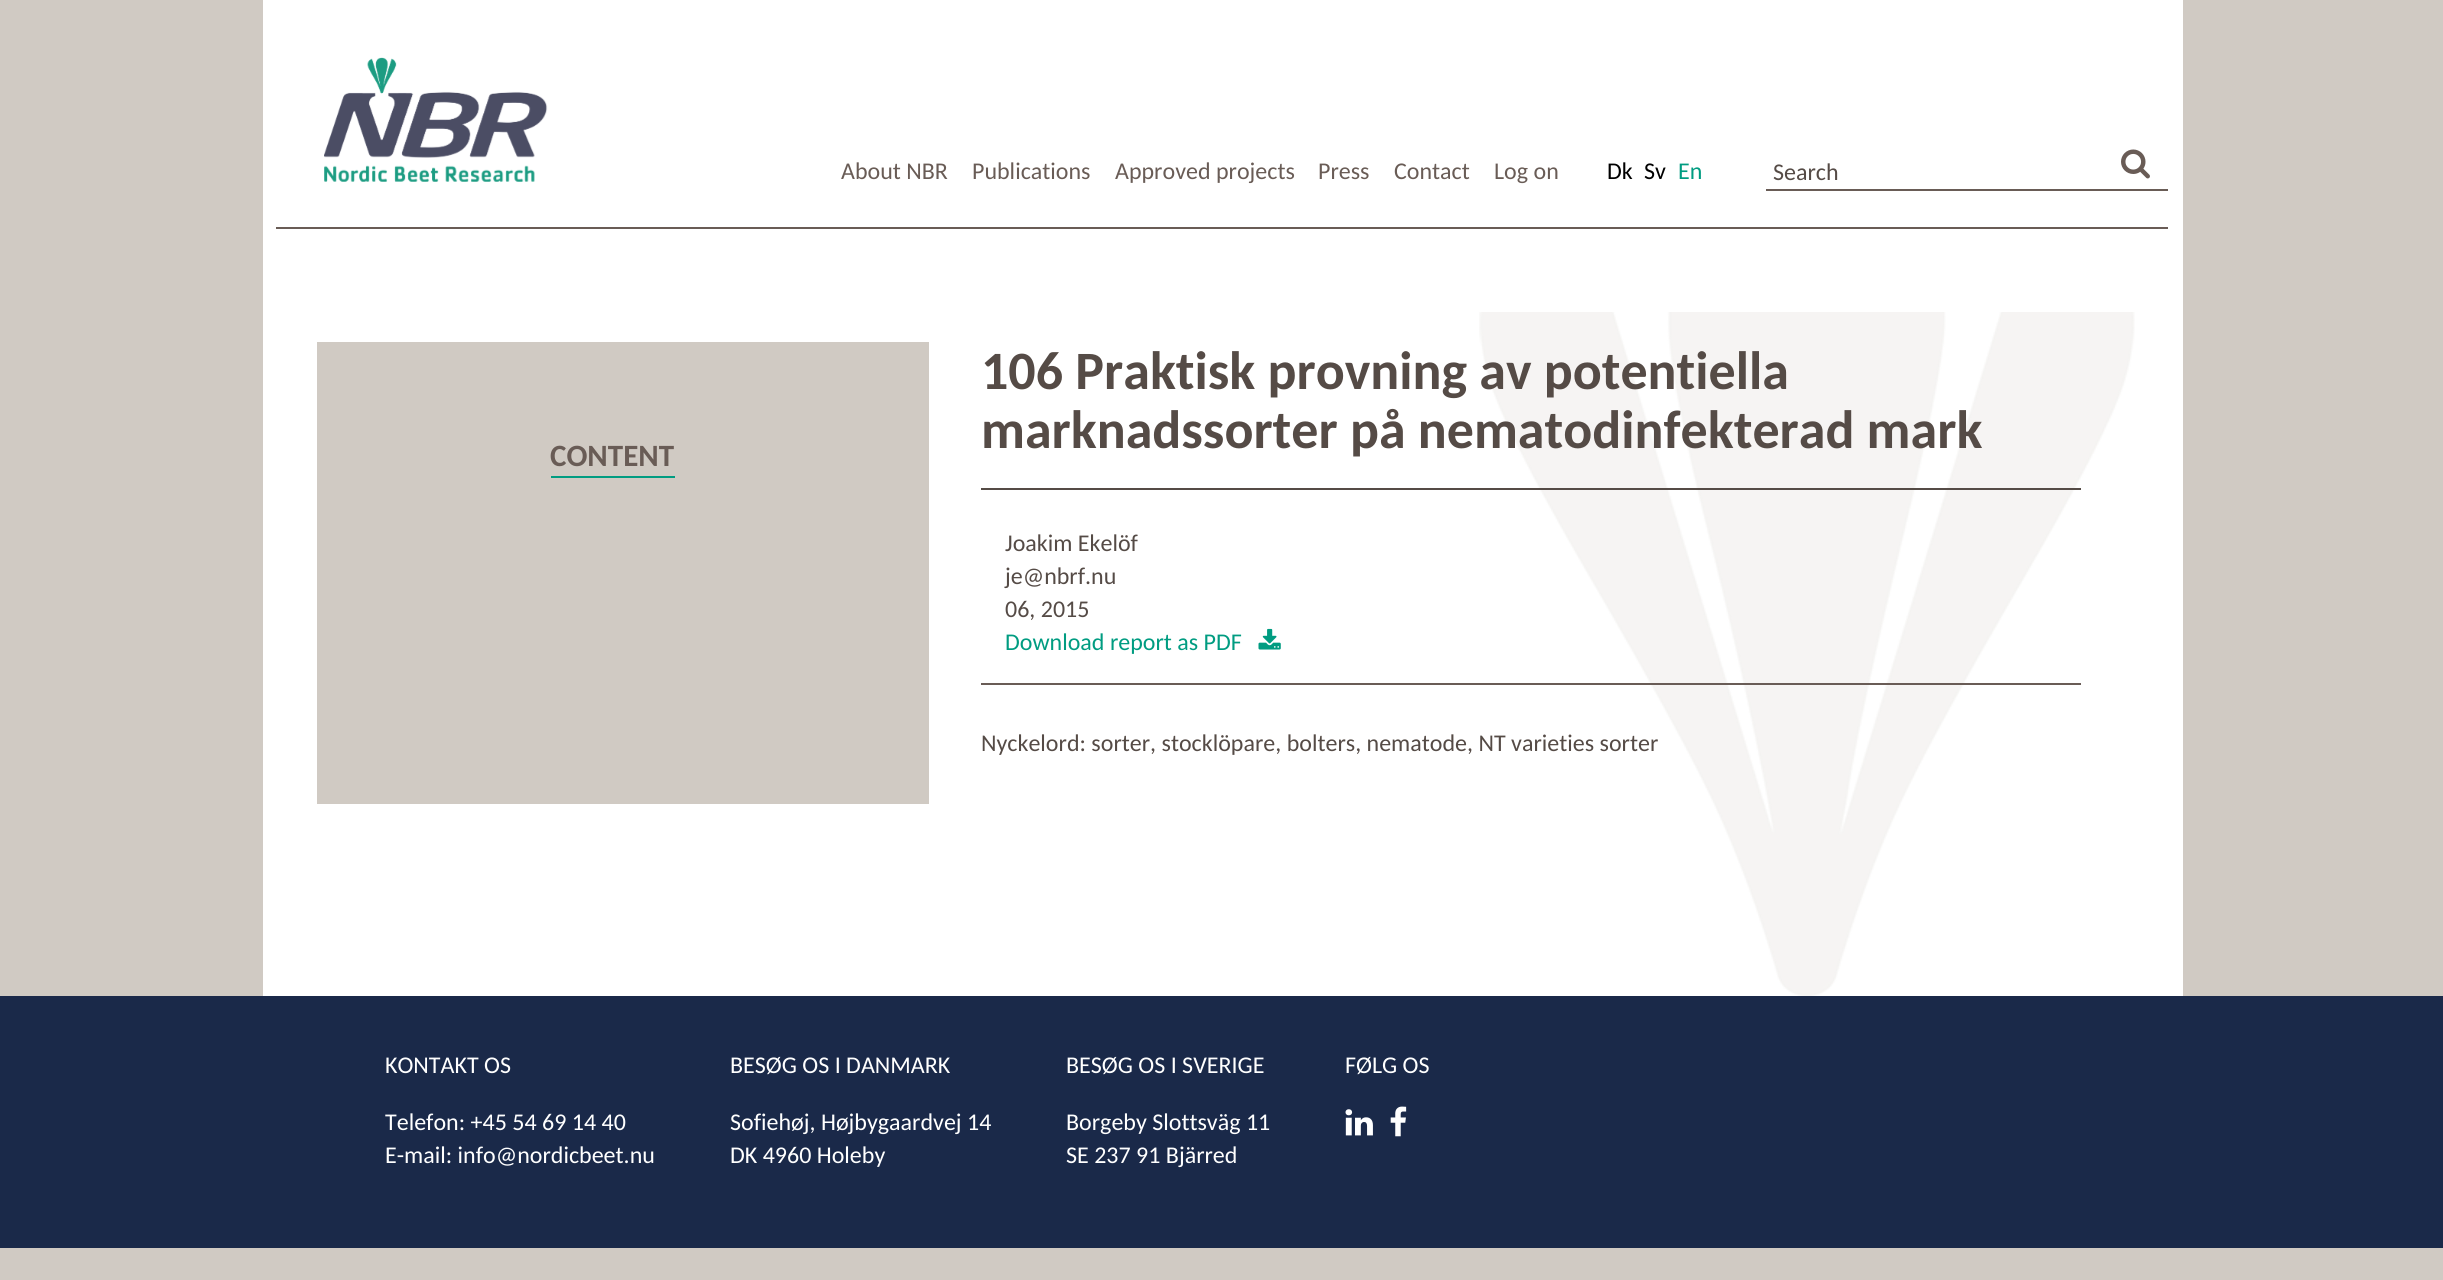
import math
import cairo

surface = cairo.ImageSurface(cairo.FORMAT_RGB24, 2443, 1280)
cr = cairo.Context(surface)
options = cairo.FontOptions()
options.set_hint_metrics(cairo.HINT_METRICS_OFF)
options.set_hint_style(cairo.HINT_STYLE_NONE)
cr.set_font_options(options)
cr.set_miter_limit(4)


def rgb(code):
    cr.set_source_rgb(*(v / 255 for v in bytes.fromhex(code[-6:])))


def image(path, x, y, w, h):
    cr.save()
    cr.set_source_surface(cairo.ImageSurface.create_from_png(path), x, y)
    cr.rectangle(x, y, w, h)
    cr.fill()
    cr.restore()


rgb("#d0cac3")
cr.paint()
rgb("#ffffff")
cr.rectangle(263, 0, 1920, 996)
cr.fill()
image("img/1.png", 324, 57, 224, 125)
rgb("#695c56")
cr.rectangle(276, 227, 1892, 2)
cr.fill()
cr.rectangle(1766, 189, 402, 2)
cr.fill()
image("img/2.png", 2121, 149, 29, 30)
image("img/3.png", 1479, 312, 656, 684)
for x, y, w, h, color in [
    (317, 342, 612, 462, "#d0cac3"),
    (551, 476, 124, 2, "#009c81"),
    (981, 488, 1100, 2, "#554b46"),
    (981, 683, 1100, 2, "#695c56"),
]:
    rgb(color)
    cr.rectangle(x, y, w, h)
    cr.fill()
image("img/4.png", 1258, 628, 23, 22)
rgb("#1a2949")
cr.rectangle(0, 996, 2443, 252)
cr.fill()
image("img/5.png", 1345, 1109, 28, 27)
image("img/6.png", 1390, 1106, 17, 31)
cr.select_font_face("Carlito")
cr.set_font_size(24)
rgb("#695c56")
for x, y, s in [
    (841, 179, "About NBR"),
    (972, 179, "Publications"),
    (1115, 179, "Approved projects"),
    (1318, 179, "Press"),
    (1394, 179, "Contact"),
    (1494, 179, "Log on"),
]:
    cr.move_to(x, y)
    cr.show_text(s)
rgb("#000000")
cr.move_to(1607, 179)
cr.show_text("Dk")
cr.move_to(1644, 179)
cr.show_text("Sv")
rgb("#009c81")
cr.move_to(1678, 179)
cr.show_text("En")
rgb("#554b46")
cr.move_to(1773, 180)
cr.show_text("Search")
cr.select_font_face("Carlito", cairo.FONT_SLANT_NORMAL, cairo.FONT_WEIGHT_BOLD)
cr.set_font_size(31)
rgb("#695c56")
cr.move_to(550, 466)
cr.show_text("CONTENT")
cr.set_font_size(54)
rgb("#554b46")
cr.move_to(981, 389)
cr.show_text("106 Praktisk provning av potentiella")
cr.move_to(981, 448)
cr.show_text("marknadssorter på nematodinfekterad mark")
cr.select_font_face("Carlito")
cr.set_font_size(24)
for x, y, s in [
    (1005, 551, "Joakim Ekelöf"),
    (1005, 584, "je@nbrf.nu"),
    (1005, 617, "06, 2015"),
]:
    cr.move_to(x, y)
    cr.show_text(s)
rgb("#009c81")
cr.move_to(1005, 650)
cr.show_text("Download report as PDF")
rgb("#554b46")
cr.move_to(981, 751)
cr.show_text("Nyckelord: sorter, stocklöpare, bolters, nematode, NT varieties sorter")
rgb("#ffffff")
for x, y, s in [
    (385, 1073, "KONTAKT OS"),
    (385, 1130, "Telefon: +45 54 69 14 40"),
    (385, 1163, "E-mail: info@nordicbeet.nu"),
    (730, 1073, "BESØG OS I DANMARK"),
    (730, 1130, "Sofiehøj, Højbygaardvej 14"),
    (730, 1163, "DK 4960 Holeby"),
    (1066, 1073, "BESØG OS I SVERIGE"),
    (1066, 1130, "Borgeby Slottsväg 11"),
    (1066, 1163, "SE 237 91 Bjärred"),
    (1345, 1073, "FØLG OS"),
]:
    cr.move_to(x, y)
    cr.show_text(s)
surface.write_to_png("page.png")
